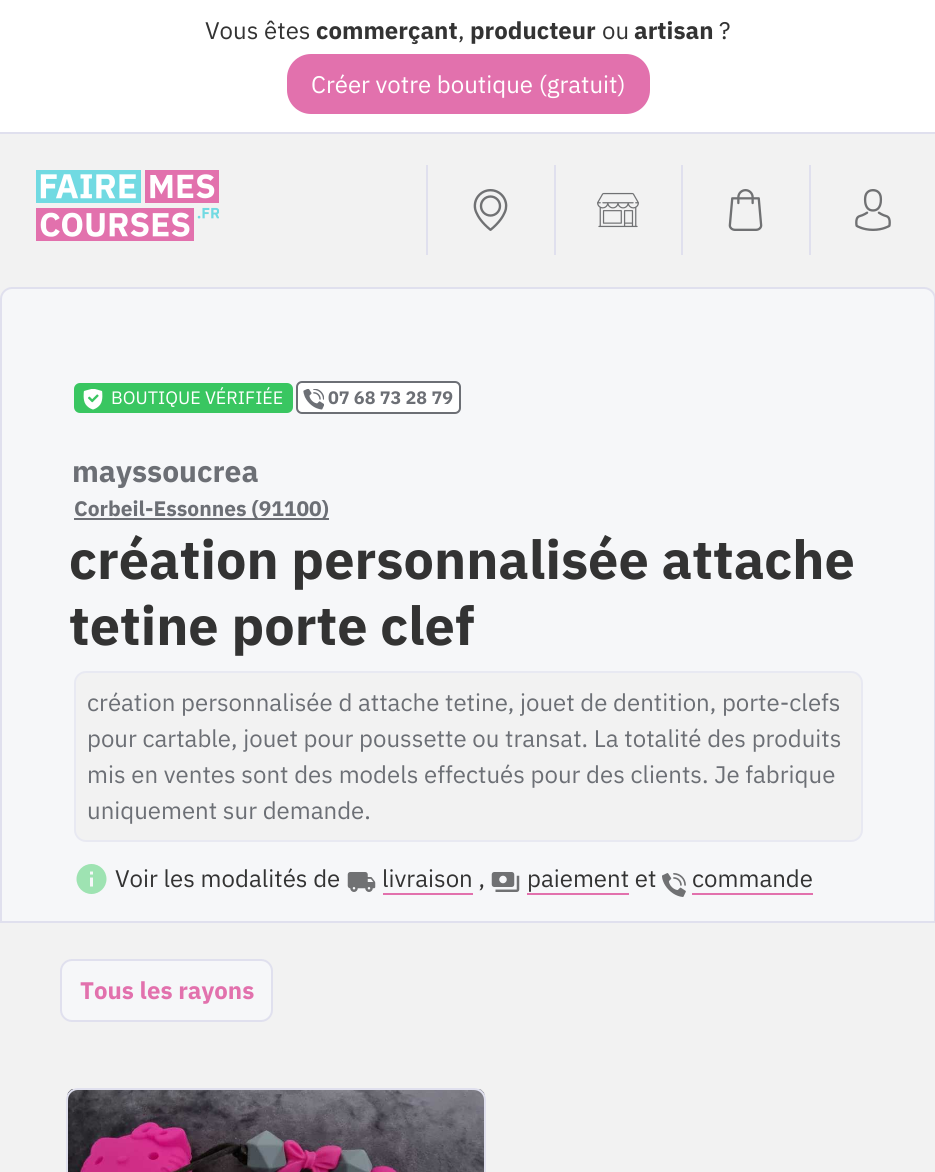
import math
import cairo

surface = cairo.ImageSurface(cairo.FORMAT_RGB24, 935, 1172)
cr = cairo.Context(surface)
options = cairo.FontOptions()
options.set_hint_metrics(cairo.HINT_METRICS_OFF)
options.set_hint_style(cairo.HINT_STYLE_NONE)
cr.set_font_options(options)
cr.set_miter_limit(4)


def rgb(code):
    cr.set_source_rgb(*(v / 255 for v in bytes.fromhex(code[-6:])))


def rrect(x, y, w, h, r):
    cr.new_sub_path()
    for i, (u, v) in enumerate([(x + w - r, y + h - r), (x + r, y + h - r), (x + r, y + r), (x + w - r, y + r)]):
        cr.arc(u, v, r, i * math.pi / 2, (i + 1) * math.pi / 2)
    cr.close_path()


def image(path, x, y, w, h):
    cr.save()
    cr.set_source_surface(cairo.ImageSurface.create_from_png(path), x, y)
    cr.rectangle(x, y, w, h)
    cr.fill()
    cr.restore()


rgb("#f2f2f2")
cr.paint()
rgb("#ffffff")
cr.rectangle(0, 0, 935, 132)
cr.fill()
rgb("#e0e0ee")
cr.rectangle(0, 132, 935, 2)
cr.fill()
rgb("#e271ad")
rrect(287, 54, 363, 60, 24)
cr.fill()
image("img/1.png", 36, 170, 183, 71)
rgb("#e0e0ee")
cr.rectangle(426, 165, 2, 90)
cr.fill()
image("img/2.png", 473, 189, 35, 42)
cr.rectangle(554, 165, 2, 90)
cr.fill()
image("img/3.png", 597, 192, 42, 36)
cr.rectangle(681, 165, 2, 90)
cr.fill()
image("img/4.png", 728, 189, 35, 42)
cr.rectangle(809, 165, 2, 90)
cr.fill()
image("img/5.png", 855, 189, 36, 42)
rgb("#f6f7f9")
cr.new_path()
cr.move_to(12, 288)
cr.line_to(924, 288)
cr.curve_to(930, 288, 935, 293, 935, 299)
cr.line_to(935, 922)
cr.line_to(1, 922)
cr.line_to(1, 299)
cr.curve_to(1, 293, 6, 288, 12, 288)
cr.close_path()
cr.fill_preserve()
rgb("#e0e0ee")
cr.stroke()
rgb("#39c661")
rrect(74, 383, 219, 30, 6)
cr.fill()
image("img/6.png", 83, 389, 20, 21)
rgb("#ffffff")
rrect(297, 382, 163, 31, 5)
cr.fill_preserve()
rgb("#6c6f75")
cr.stroke()
image("img/7.png", 303, 389, 21, 21)
cr.rectangle(74, 518, 255, 2)
cr.fill()
rgb("#f2f2f2")
rrect(75, 672, 787, 169, 11)
cr.fill_preserve()
rgb("#e8e9f2")
cr.stroke()
image("img/8.png", 76, 864, 31, 30)
image("img/9.png", 347, 872, 29, 20)
rgb("#e271ad")
cr.rectangle(383, 893, 90, 2)
cr.fill()
image("img/10.png", 491, 872, 29, 20)
cr.rectangle(527, 893, 102, 2)
cr.fill()
image("img/11.png", 662, 873, 24, 24)
cr.rectangle(692, 893, 121, 2)
cr.fill()
rgb("#f6f7f9")
rrect(61, 960, 211, 61, 11)
cr.fill_preserve()
rgb("#e0e0ee")
cr.stroke()
image("img/12.png", 67, 1089, 418, 83)
rrect(67, 1089, 418, 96, 11)
cr.stroke()
cr.select_font_face("IBM Plex Sans")
cr.set_font_size(24)
rgb("#333333")
cr.move_to(205, 39)
cr.show_text("Vous êtes")
cr.select_font_face("IBM Plex Sans", cairo.FONT_SLANT_NORMAL, cairo.FONT_WEIGHT_BOLD)
cr.move_to(316, 39)
cr.show_text("commerçant")
cr.select_font_face("IBM Plex Sans")
cr.move_to(458, 39)
cr.show_text(",")
cr.select_font_face("IBM Plex Sans", cairo.FONT_SLANT_NORMAL, cairo.FONT_WEIGHT_BOLD)
cr.move_to(470, 39)
cr.show_text("producteur")
cr.select_font_face("IBM Plex Sans")
cr.move_to(602, 39)
cr.show_text("ou")
cr.select_font_face("IBM Plex Sans", cairo.FONT_SLANT_NORMAL, cairo.FONT_WEIGHT_BOLD)
cr.move_to(634, 39)
cr.show_text("artisan")
cr.select_font_face("IBM Plex Sans")
cr.move_to(719, 39)
cr.show_text("?")
rgb("#ffffff")
cr.move_to(311, 93)
cr.show_text("Créer votre boutique (gratuit)")
cr.set_font_size(18)
cr.move_to(111, 404)
cr.show_text("BOUTIQUE VÉRIFIÉE")
cr.select_font_face("IBM Plex Sans", cairo.FONT_SLANT_NORMAL, cairo.FONT_WEIGHT_BOLD)
rgb("#6c6f75")
cr.move_to(328, 404)
cr.show_text("07 68 73 28 79")
cr.set_font_size(30)
cr.move_to(72, 482)
cr.show_text("mayssoucrea")
cr.set_font_size(21)
cr.move_to(74, 516)
cr.show_text("Corbeil-Essonnes (91100)")
cr.set_font_size(54)
rgb("#333333")
cr.move_to(69, 579)
cr.show_text("création personnalisée attache")
cr.move_to(69, 645)
cr.show_text("tetine porte clef")
cr.select_font_face("IBM Plex Sans")
cr.set_font_size(24)
rgb("#6c6f75")
for x, y, s in [
    (87, 711, "création personnalisée d attache tetine, jouet de dentition, porte-clefs"),
    (87, 747, "pour cartable, jouet pour poussette ou transat. La totalité des produits"),
    (87, 783, "mis en ventes sont des models effectués pour des clients. Je fabrique"),
    (87, 819, "uniquement sur demande."),
]:
    cr.move_to(x, y)
    cr.show_text(s)
rgb("#333333")
for x, y, s in [
    (115, 887, "Voir les modalités de"),
    (382, 887, "livraison ,"),
    (527, 887, "paiement et"),
    (692, 887, "commande"),
]:
    cr.move_to(x, y)
    cr.show_text(s)
cr.select_font_face("IBM Plex Sans", cairo.FONT_SLANT_NORMAL, cairo.FONT_WEIGHT_BOLD)
rgb("#e271ad")
cr.move_to(80, 999)
cr.show_text("Tous les rayons")
surface.write_to_png("page.png")
